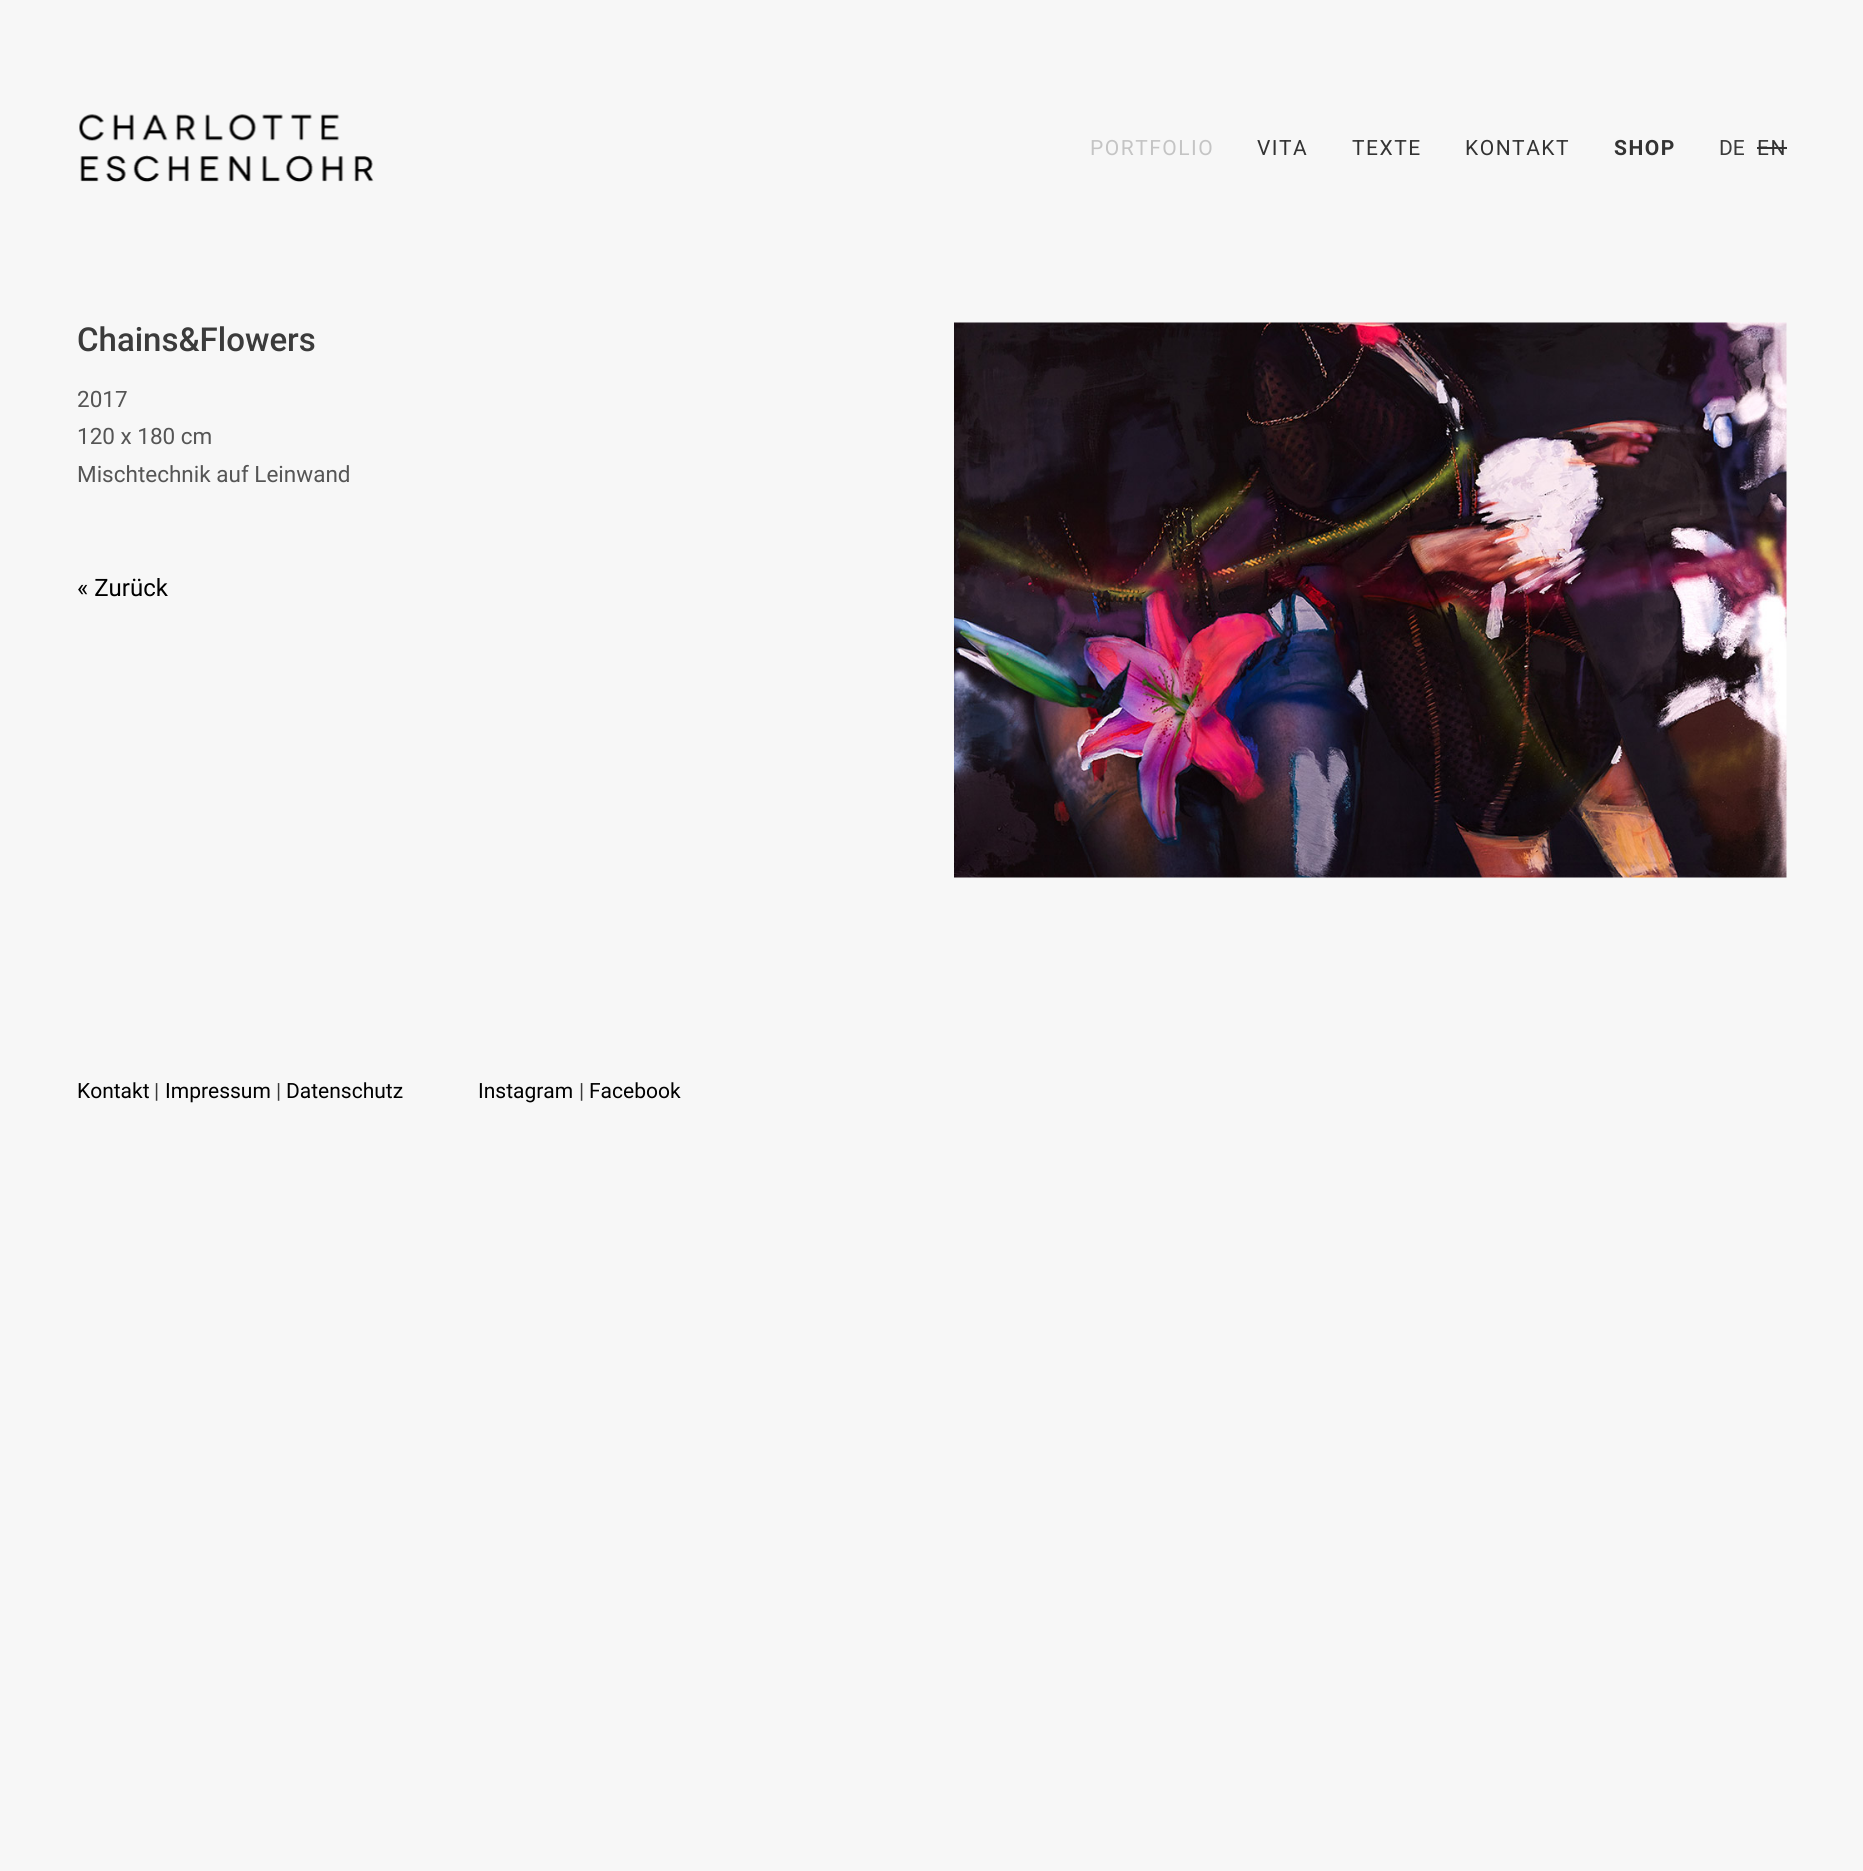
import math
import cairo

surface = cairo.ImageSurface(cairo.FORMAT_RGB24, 1863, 1871)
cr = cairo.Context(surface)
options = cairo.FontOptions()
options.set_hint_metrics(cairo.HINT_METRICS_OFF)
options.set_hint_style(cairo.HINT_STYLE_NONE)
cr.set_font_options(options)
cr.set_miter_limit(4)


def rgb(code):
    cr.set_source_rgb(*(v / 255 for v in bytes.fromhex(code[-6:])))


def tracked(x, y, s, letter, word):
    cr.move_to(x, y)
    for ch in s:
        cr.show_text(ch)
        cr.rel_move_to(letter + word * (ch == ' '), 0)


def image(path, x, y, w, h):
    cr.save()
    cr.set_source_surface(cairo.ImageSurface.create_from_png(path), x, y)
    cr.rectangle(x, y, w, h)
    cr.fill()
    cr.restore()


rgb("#f7f7f7")
cr.paint()
image("img/1.png", 79, 114, 295, 68)
rgb("#333333")
cr.rectangle(1757, 147, 30, 2)
cr.fill()
image("img/2.png", 954, 322, 833, 556)
cr.select_font_face("Roboto")
cr.set_font_size(21)
rgb("#c4c4c4")
tracked(1090, 155, "PORTFOLIO", 1.5, 0)
rgb("#333333")
for x, y, s in [
    (1257, 155, "VITA"),
    (1352, 155, "TEXTE"),
    (1465, 155, "KONTAKT"),
]:
    tracked(x, y, s, 1.5, 0)
cr.select_font_face("Roboto", cairo.FONT_SLANT_NORMAL, cairo.FONT_WEIGHT_BOLD)
tracked(1614, 155, "SHOP", 1.5, 0)
cr.select_font_face("Roboto")
rgb("#3b3b3b")
cr.move_to(1719, 155)
cr.show_text("DE")
rgb("#333333")
tracked(1757, 155, "EN", 1.5, 0)
cr.select_font_face("Roboto Medium")
cr.set_font_size(33)
rgb("#3b3b3b")
cr.move_to(77, 351)
cr.show_text("Chains&Flowers")
cr.select_font_face("Roboto")
cr.set_font_size(22.5)
rgb("#555555")
for x, y, s in [
    (77, 407, "2017"),
    (77, 444, "120 x 180 cm"),
    (77, 482, "Mischtechnik auf Leinwand"),
]:
    cr.move_to(x, y)
    cr.show_text(s)
cr.set_font_size(24)
rgb("#000000")
cr.move_to(77, 596)
cr.show_text("« Zurück")
cr.set_font_size(21)
cr.move_to(77, 1098)
cr.show_text("Kontakt")
rgb("#3b3b3b")
cr.move_to(154, 1098)
cr.show_text("|")
rgb("#000000")
cr.move_to(165, 1098)
cr.show_text("Impressum")
rgb("#3b3b3b")
cr.move_to(276, 1098)
cr.show_text("|")
rgb("#000000")
cr.move_to(286, 1098)
cr.show_text("Datenschutz")
cr.move_to(478, 1098)
cr.show_text("Instagram")
rgb("#3b3b3b")
cr.move_to(579, 1098)
cr.show_text("|")
rgb("#000000")
cr.move_to(589, 1098)
cr.show_text("Facebook")
surface.write_to_png("page.png")
